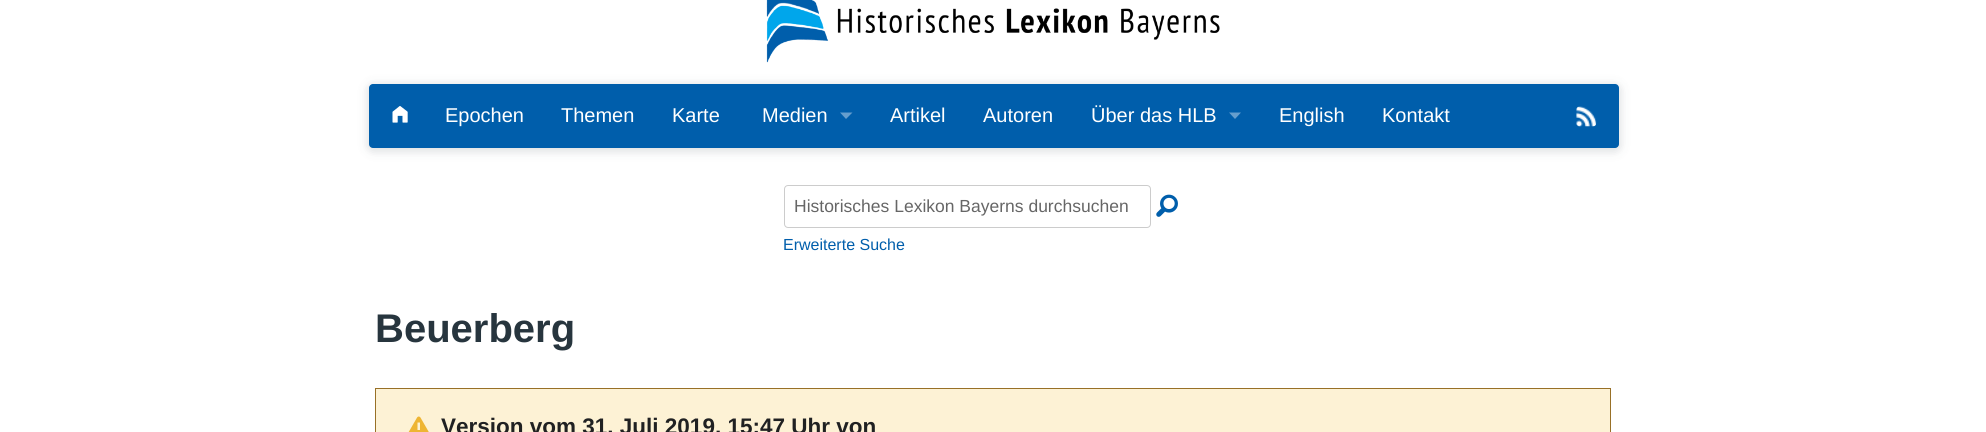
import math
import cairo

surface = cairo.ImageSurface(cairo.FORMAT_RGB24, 1986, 432)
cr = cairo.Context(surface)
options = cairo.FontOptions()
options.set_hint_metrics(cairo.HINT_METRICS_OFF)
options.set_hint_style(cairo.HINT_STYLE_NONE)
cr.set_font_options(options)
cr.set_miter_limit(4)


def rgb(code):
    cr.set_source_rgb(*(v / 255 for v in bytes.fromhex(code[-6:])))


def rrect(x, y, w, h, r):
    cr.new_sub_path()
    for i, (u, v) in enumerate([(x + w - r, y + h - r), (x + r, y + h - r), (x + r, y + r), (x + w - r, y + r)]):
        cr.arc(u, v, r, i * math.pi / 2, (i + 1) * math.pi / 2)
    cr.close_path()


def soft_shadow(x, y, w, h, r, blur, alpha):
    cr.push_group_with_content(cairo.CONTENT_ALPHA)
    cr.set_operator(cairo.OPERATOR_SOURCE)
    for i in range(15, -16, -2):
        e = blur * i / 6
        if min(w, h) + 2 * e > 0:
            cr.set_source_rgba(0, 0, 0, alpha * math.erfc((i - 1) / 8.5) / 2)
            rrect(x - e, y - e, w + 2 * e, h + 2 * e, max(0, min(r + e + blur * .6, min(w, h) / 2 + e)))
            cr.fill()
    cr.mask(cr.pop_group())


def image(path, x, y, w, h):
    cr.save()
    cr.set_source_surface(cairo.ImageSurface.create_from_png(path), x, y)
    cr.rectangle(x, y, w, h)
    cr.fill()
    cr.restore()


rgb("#ffffff")
cr.paint()
image("img/1.png", 766, 0, 454, 63)
rgb("#27353e")
soft_shadow(368, 85, 1252, 66, 5, 5, 0.17)
rgb("#005eab")
rrect(369, 84, 1250, 64, 4)
cr.fill()
image("img/2.png", 392, 106, 16, 17)
rgb("#669ecd")
cr.new_path()
cr.move_to(840, 112.5)
cr.line_to(852.5, 112.5)
cr.line_to(846, 119)
cr.close_path()
cr.fill()
cr.new_path()
cr.move_to(1229, 112.5)
cr.line_to(1241, 112.5)
cr.line_to(1235, 119)
cr.close_path()
cr.fill()
image("img/3.png", 1576, 106, 21, 21)
rrect(784.5, 185.5, 366, 42, 3.5)
rgb("#cccccc")
cr.set_line_width(1)
cr.stroke()
image("img/4.png", 1156, 194, 22, 23)
rgb("#fdf2d5")
cr.rectangle(375.5, 388.5, 1235, 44)
cr.fill_preserve()
rgb("#987027")
cr.stroke()
image("img/5.png", 408, 416, 21, 16)
cr.select_font_face("Liberation Sans")
cr.set_font_size(20)
rgb("#ffffff")
for x, y, s in [
    (445, 122, "Epochen"),
    (561, 122, "Themen"),
    (672, 122, "Karte"),
    (762, 122, "Medien"),
    (890, 122, "Artikel"),
    (983, 122, "Autoren"),
    (1091, 122, "Über das HLB"),
    (1279, 122, "English"),
    (1382, 122, "Kontakt"),
]:
    cr.move_to(x, y)
    cr.show_text(s)
cr.set_font_size(17.5)
rgb("#666666")
cr.move_to(794, 212)
cr.show_text("Historisches Lexikon Bayerns durchsuchen")
cr.set_font_size(16)
rgb("#005eab")
cr.move_to(783, 250)
cr.show_text("Erweiterte Suche")
cr.select_font_face("Liberation Sans", cairo.FONT_SLANT_NORMAL, cairo.FONT_WEIGHT_BOLD)
cr.set_font_size(40)
rgb("#27353e")
cr.move_to(375, 342)
cr.show_text("Beuerberg")
cr.set_font_size(22.5)
rgb("#202122")
cr.move_to(441, 434)
cr.show_text("Version vom 31. Juli 2019, 15:47 Uhr von")
surface.write_to_png("page.png")
